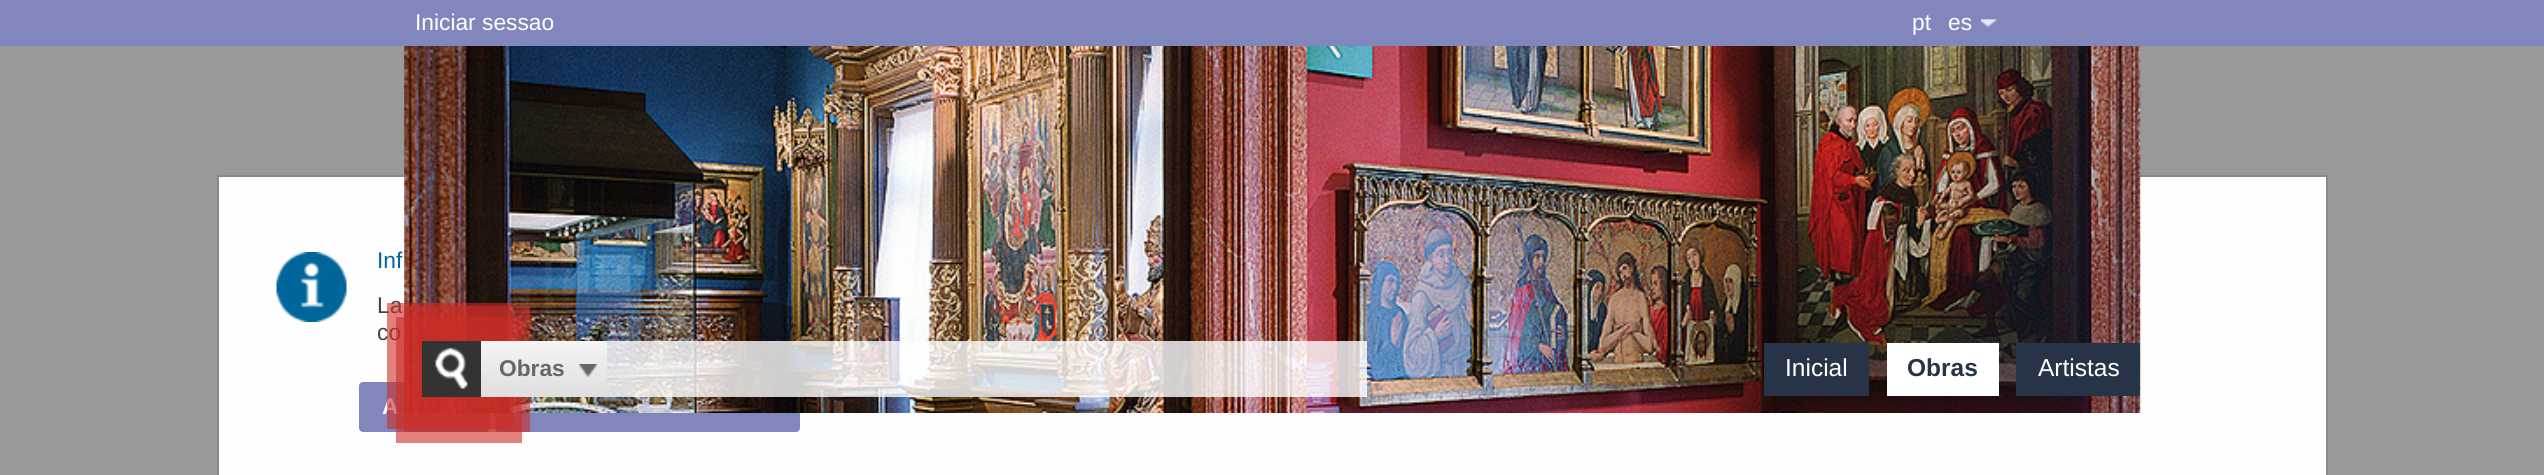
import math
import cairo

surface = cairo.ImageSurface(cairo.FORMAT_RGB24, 2544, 475)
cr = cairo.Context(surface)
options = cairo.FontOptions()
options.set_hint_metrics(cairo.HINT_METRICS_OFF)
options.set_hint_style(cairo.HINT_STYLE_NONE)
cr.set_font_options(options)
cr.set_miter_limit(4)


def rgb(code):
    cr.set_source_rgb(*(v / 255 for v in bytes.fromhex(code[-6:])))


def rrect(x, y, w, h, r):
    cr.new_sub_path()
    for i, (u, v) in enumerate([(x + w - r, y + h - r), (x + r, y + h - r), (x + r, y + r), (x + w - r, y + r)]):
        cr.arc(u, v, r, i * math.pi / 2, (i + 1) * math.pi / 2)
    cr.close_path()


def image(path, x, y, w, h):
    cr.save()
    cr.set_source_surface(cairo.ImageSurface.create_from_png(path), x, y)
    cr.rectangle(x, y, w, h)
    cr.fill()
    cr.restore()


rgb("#999999")
cr.paint()
rgb("#fefefe")
cr.rectangle(218, 176, 2109, 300)
cr.fill_preserve()
rgb("#888888")
cr.stroke()
image("img/1.png", 276, 252, 71, 70)
rgb("#8186bd")
rrect(360, 383, 129, 48, 3)
cr.fill_preserve()
cr.stroke()
rrect(496, 383, 303, 48, 3)
cr.fill_preserve()
cr.stroke()
cr.rectangle(0, 0, 2544, 46)
cr.fill()
image("img/2.png", 1981, 18, 17, 9)
image("img/3.png", 404, 46, 1737, 367)
cr.set_source_rgba(0.796, 0.176, 0.153, 0.6)
cr.rectangle(404, 306, 126, 126)
cr.fill()
cr.set_source_rgba(1, 1, 1, 0.8)
cr.rectangle(607, 341, 760, 56)
cr.fill()
rgb("#273347")
cr.rectangle(1764, 343, 105, 53)
cr.fill()
rgb("#ffffff")
cr.rectangle(1887, 343, 112, 53)
cr.fill()
rgb("#273347")
cr.rectangle(2016, 343, 124, 53)
cr.fill()
cr.select_font_face("Liberation Sans")
cr.set_font_size(22.75)
rgb("#006699")
cr.move_to(377, 268)
cr.show_text("Inf")
rgb("#444444")
cr.move_to(377, 313)
cr.show_text("La")
cr.move_to(377, 340)
cr.show_text("co")
cr.select_font_face("Liberation Sans", cairo.FONT_SLANT_NORMAL, cairo.FONT_WEIGHT_BOLD)
rgb("#ffffff")
cr.move_to(382, 414)
cr.show_text("A")
cr.select_font_face("Liberation Sans")
for x, y, s in [
    (415, 30, "Iniciar sessao"),
    (1912, 30, "pt"),
    (1948, 30, "es"),
]:
    cr.move_to(x, y)
    cr.show_text(s)
cr.set_source_rgba(0.796, 0.176, 0.153, 0.6)
cr.rectangle(396, 317, 126, 126)
cr.fill()
cr.rectangle(387, 303, 126, 126)
cr.fill()
rgb("#333333")
cr.rectangle(422, 341, 59, 56)
cr.fill()
image("img/4.png", 435, 347, 33, 42)
gradient = cairo.LinearGradient(544, 341, 544, 397)
gradient.add_color_stop_rgba(0, 0.961, 0.961, 0.961, 1)
gradient.add_color_stop_rgba(1, 0.871, 0.871, 0.871, 1)
cr.set_source(gradient)
cr.rectangle(481, 341, 126, 56)
cr.fill()
cr.select_font_face("Liberation Sans", cairo.FONT_SLANT_NORMAL, cairo.FONT_WEIGHT_BOLD)
rgb("#666666")
cr.move_to(499, 376)
cr.show_text("Obras")
image("img/5.png", 579, 364, 19, 13)
cr.select_font_face("Liberation Sans")
cr.set_font_size(24.5)
rgb("#ffffff")
cr.move_to(1785, 376)
cr.show_text("Inicial")
cr.select_font_face("Liberation Sans", cairo.FONT_SLANT_NORMAL, cairo.FONT_WEIGHT_BOLD)
rgb("#273347")
cr.move_to(1907, 376)
cr.show_text("Obras")
cr.select_font_face("Liberation Sans")
rgb("#ffffff")
cr.move_to(2038, 376)
cr.show_text("Artistas")
surface.write_to_png("page.png")
